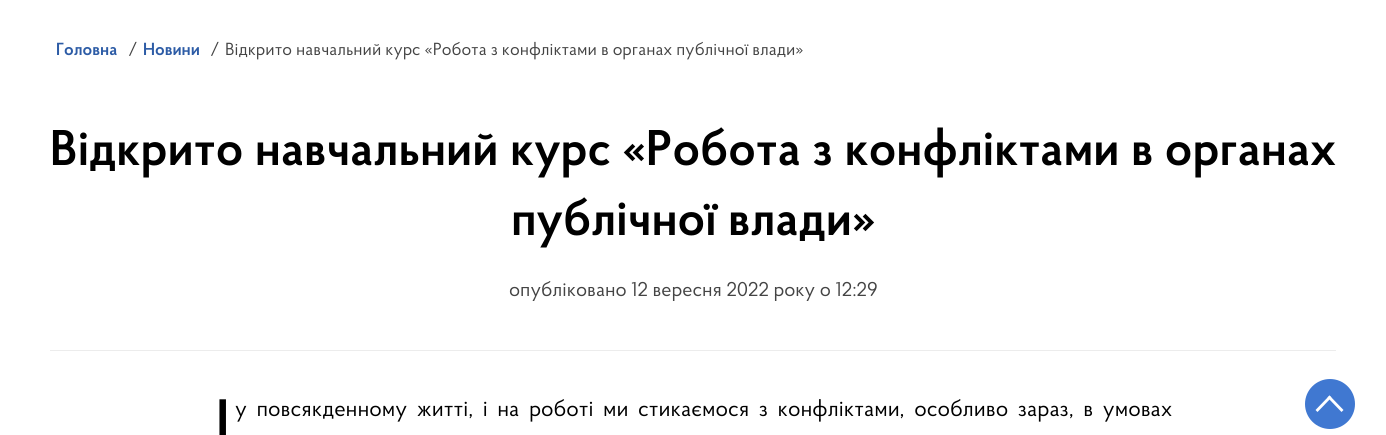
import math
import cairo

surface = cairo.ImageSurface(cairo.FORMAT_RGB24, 1386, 435)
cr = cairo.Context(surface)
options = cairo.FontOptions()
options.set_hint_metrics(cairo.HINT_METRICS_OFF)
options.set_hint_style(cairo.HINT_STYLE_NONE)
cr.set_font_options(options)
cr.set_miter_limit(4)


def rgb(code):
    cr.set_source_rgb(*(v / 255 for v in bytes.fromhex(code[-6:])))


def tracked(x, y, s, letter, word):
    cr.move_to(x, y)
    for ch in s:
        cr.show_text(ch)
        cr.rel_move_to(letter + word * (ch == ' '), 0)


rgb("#ffffff")
cr.paint()
rgb("#ececec")
cr.rectangle(50, 350, 1286, 1)
cr.fill()
rgb("#4078d1")
cr.arc(1330, 404, 25, 0, 2 * math.pi)
cr.fill()
rgb("#ffffff")
cr.new_path()
cr.move_to(1327.5, 397.5)
cr.line_to(1329.5, 395.5)
cr.line_to(1343.5, 410)
cr.line_to(1341.5, 412)
cr.close_path()
cr.fill()
cr.new_path()
cr.move_to(1329.5, 395.5)
cr.line_to(1331.5, 397.5)
cr.line_to(1317.5, 412)
cr.line_to(1315.5, 410)
cr.close_path()
cr.fill()
cr.select_font_face("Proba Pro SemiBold")
cr.set_font_size(17.5)
rgb("#2d5ca6")
cr.move_to(56, 55)
cr.show_text("Головна")
cr.select_font_face("Proba Pro")
rgb("#444444")
cr.move_to(128, 55)
cr.show_text("/")
cr.select_font_face("Proba Pro SemiBold")
rgb("#2d5ca6")
cr.move_to(143, 55)
cr.show_text("Новини")
cr.select_font_face("Proba Pro")
rgb("#444444")
cr.move_to(210, 55)
cr.show_text("/")
cr.move_to(225, 55)
cr.show_text("Відкрито навчальний курс «Робота з конфліктами в органах публічної влади»")
cr.select_font_face("Proba Pro SemiBold")
cr.set_font_size(50)
rgb("#000000")
cr.move_to(50, 165)
cr.show_text("Відкрито навчальний курс «Робота з конфліктами в органах")
cr.move_to(511, 235)
cr.show_text("публічної влади»")
cr.select_font_face("Proba Pro")
cr.set_font_size(20)
rgb("#444444")
cr.move_to(509, 296)
cr.show_text("опубліковано 12 вересня 2022 року о 12:29")
cr.select_font_face("Noto Sans SemiBold")
cr.set_font_size(50)
rgb("#000000")
cr.move_to(215, 435)
cr.show_text("І")
cr.select_font_face("Proba Pro")
cr.set_font_size(22.5)
tracked(235, 416, "у повсякденному житті, і на роботі ми стикаємося з конфліктами, особливо зараз, в умовах", 0, 4.4)
surface.write_to_png("page.png")
